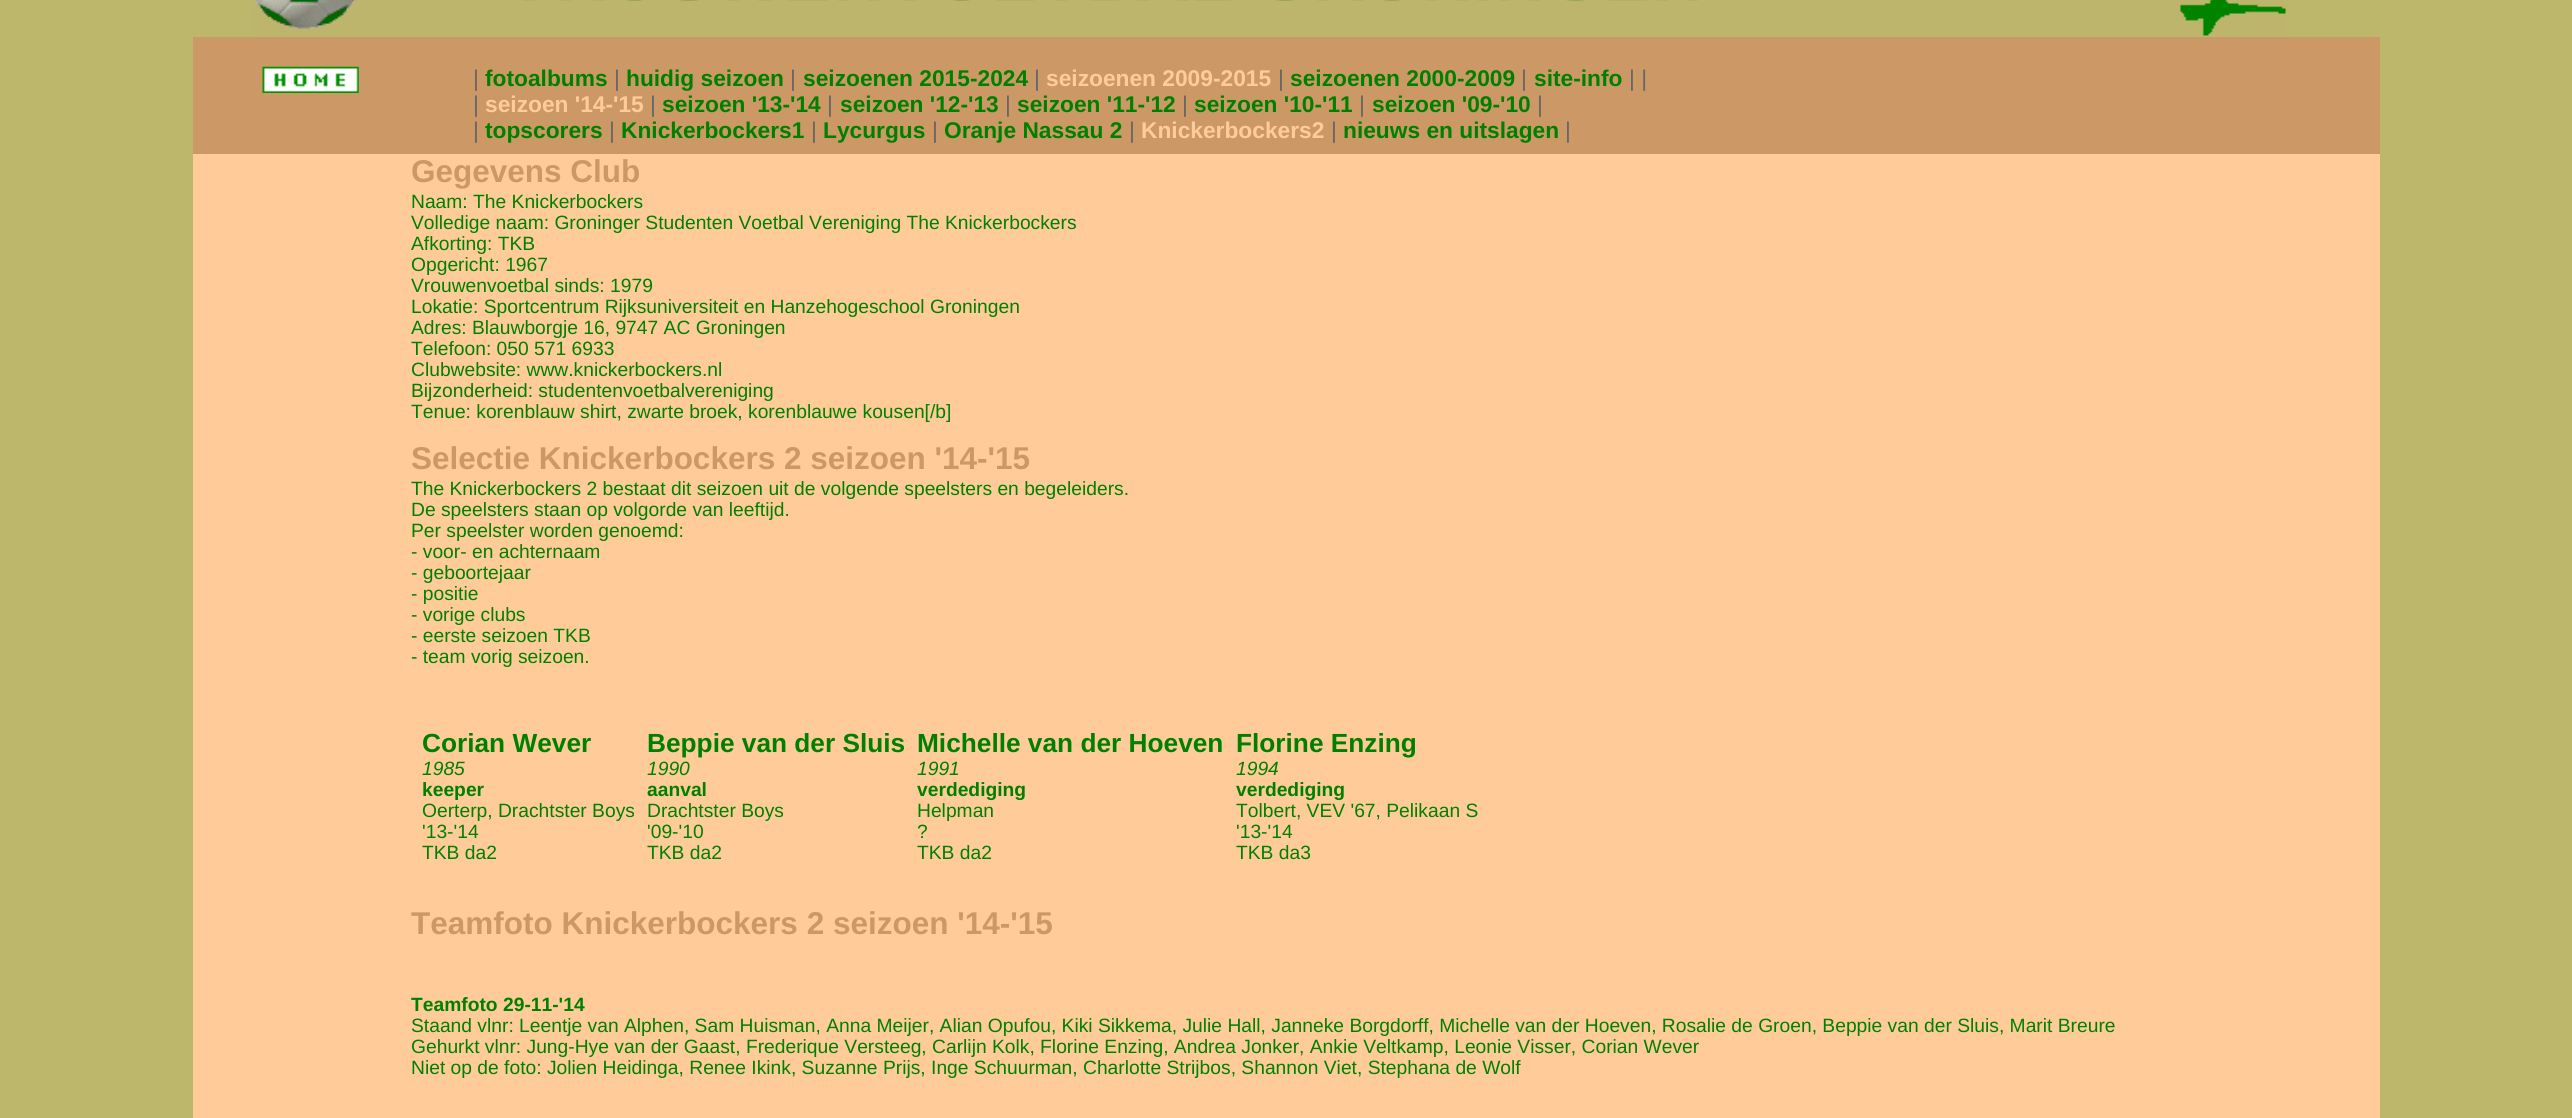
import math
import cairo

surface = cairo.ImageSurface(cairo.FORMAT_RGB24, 2572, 1118)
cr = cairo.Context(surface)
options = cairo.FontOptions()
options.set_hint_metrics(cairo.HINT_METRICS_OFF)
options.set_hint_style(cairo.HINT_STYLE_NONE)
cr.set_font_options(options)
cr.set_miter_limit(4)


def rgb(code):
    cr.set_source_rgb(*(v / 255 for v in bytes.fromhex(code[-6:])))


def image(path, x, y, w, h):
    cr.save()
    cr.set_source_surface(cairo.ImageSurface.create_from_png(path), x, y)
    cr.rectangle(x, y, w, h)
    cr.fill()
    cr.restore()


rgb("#bdb76b")
cr.paint()
rgb("#ffcc99")
cr.rectangle(193, 154, 2187, 964)
cr.fill()
image("img/1.png", 253, 0, 2033, 36)
rgb("#cc9966")
cr.rectangle(193, 37, 2187, 117)
cr.fill()
image("img/2.png", 262, 66, 97, 27)
cr.select_font_face("Liberation Sans")
cr.set_font_size(22.75)
rgb("#666666")
cr.move_to(473, 86)
cr.show_text("|")
cr.select_font_face("Liberation Sans", cairo.FONT_SLANT_NORMAL, cairo.FONT_WEIGHT_BOLD)
rgb("#008000")
cr.move_to(485, 86)
cr.show_text("fotoalbums")
cr.select_font_face("Liberation Sans")
rgb("#666666")
cr.move_to(614, 86)
cr.show_text("|")
cr.select_font_face("Liberation Sans", cairo.FONT_SLANT_NORMAL, cairo.FONT_WEIGHT_BOLD)
rgb("#008000")
cr.move_to(626, 86)
cr.show_text("huidig seizoen")
cr.select_font_face("Liberation Sans")
rgb("#666666")
cr.move_to(790, 86)
cr.show_text("|")
cr.select_font_face("Liberation Sans", cairo.FONT_SLANT_NORMAL, cairo.FONT_WEIGHT_BOLD)
rgb("#008000")
cr.move_to(803, 86)
cr.show_text("seizoenen 2015-2024")
cr.select_font_face("Liberation Sans")
rgb("#666666")
cr.move_to(1034, 86)
cr.show_text("|")
cr.select_font_face("Liberation Sans", cairo.FONT_SLANT_NORMAL, cairo.FONT_WEIGHT_BOLD)
rgb("#ffcc99")
cr.move_to(1046, 86)
cr.show_text("seizoenen 2009-2015")
cr.select_font_face("Liberation Sans")
rgb("#666666")
cr.move_to(1278, 86)
cr.show_text("|")
cr.select_font_face("Liberation Sans", cairo.FONT_SLANT_NORMAL, cairo.FONT_WEIGHT_BOLD)
rgb("#008000")
cr.move_to(1290, 86)
cr.show_text("seizoenen 2000-2009")
cr.select_font_face("Liberation Sans")
rgb("#666666")
cr.move_to(1521, 86)
cr.show_text("|")
cr.select_font_face("Liberation Sans", cairo.FONT_SLANT_NORMAL, cairo.FONT_WEIGHT_BOLD)
rgb("#008000")
cr.move_to(1534, 86)
cr.show_text("site-info")
cr.select_font_face("Liberation Sans")
rgb("#666666")
cr.move_to(1629, 86)
cr.show_text("| |")
cr.move_to(473, 112)
cr.show_text("|")
cr.select_font_face("Liberation Sans", cairo.FONT_SLANT_NORMAL, cairo.FONT_WEIGHT_BOLD)
rgb("#ffcc99")
cr.move_to(485, 112)
cr.show_text("seizoen '14-'15")
cr.select_font_face("Liberation Sans")
rgb("#666666")
cr.move_to(650, 112)
cr.show_text("|")
cr.select_font_face("Liberation Sans", cairo.FONT_SLANT_NORMAL, cairo.FONT_WEIGHT_BOLD)
rgb("#008000")
cr.move_to(662, 112)
cr.show_text("seizoen '13-'14")
cr.select_font_face("Liberation Sans")
rgb("#666666")
cr.move_to(827, 112)
cr.show_text("|")
cr.select_font_face("Liberation Sans", cairo.FONT_SLANT_NORMAL, cairo.FONT_WEIGHT_BOLD)
rgb("#008000")
cr.move_to(840, 112)
cr.show_text("seizoen '12-'13")
cr.select_font_face("Liberation Sans")
rgb("#666666")
cr.move_to(1005, 112)
cr.show_text("|")
cr.select_font_face("Liberation Sans", cairo.FONT_SLANT_NORMAL, cairo.FONT_WEIGHT_BOLD)
rgb("#008000")
cr.move_to(1017, 112)
cr.show_text("seizoen '11-'12")
cr.select_font_face("Liberation Sans")
rgb("#666666")
cr.move_to(1182, 112)
cr.show_text("|")
cr.select_font_face("Liberation Sans", cairo.FONT_SLANT_NORMAL, cairo.FONT_WEIGHT_BOLD)
rgb("#008000")
cr.move_to(1194, 112)
cr.show_text("seizoen '10-'11")
cr.select_font_face("Liberation Sans")
rgb("#666666")
cr.move_to(1359, 112)
cr.show_text("|")
cr.select_font_face("Liberation Sans", cairo.FONT_SLANT_NORMAL, cairo.FONT_WEIGHT_BOLD)
rgb("#008000")
cr.move_to(1372, 112)
cr.show_text("seizoen '09-'10")
cr.select_font_face("Liberation Sans")
rgb("#666666")
cr.move_to(1537, 112)
cr.show_text("|")
cr.move_to(473, 138)
cr.show_text("|")
cr.select_font_face("Liberation Sans", cairo.FONT_SLANT_NORMAL, cairo.FONT_WEIGHT_BOLD)
rgb("#008000")
cr.move_to(485, 138)
cr.show_text("topscorers")
cr.select_font_face("Liberation Sans")
rgb("#666666")
cr.move_to(609, 138)
cr.show_text("|")
cr.select_font_face("Liberation Sans", cairo.FONT_SLANT_NORMAL, cairo.FONT_WEIGHT_BOLD)
rgb("#008000")
cr.move_to(621, 138)
cr.show_text("Knickerbockers1")
cr.select_font_face("Liberation Sans")
rgb("#666666")
cr.move_to(811, 138)
cr.show_text("|")
cr.select_font_face("Liberation Sans", cairo.FONT_SLANT_NORMAL, cairo.FONT_WEIGHT_BOLD)
rgb("#008000")
cr.move_to(823, 138)
cr.show_text("Lycurgus")
cr.select_font_face("Liberation Sans")
rgb("#666666")
cr.move_to(932, 138)
cr.show_text("|")
cr.select_font_face("Liberation Sans", cairo.FONT_SLANT_NORMAL, cairo.FONT_WEIGHT_BOLD)
rgb("#008000")
cr.move_to(944, 138)
cr.show_text("Oranje Nassau 2")
cr.select_font_face("Liberation Sans")
rgb("#666666")
cr.move_to(1129, 138)
cr.show_text("|")
cr.select_font_face("Liberation Sans", cairo.FONT_SLANT_NORMAL, cairo.FONT_WEIGHT_BOLD)
rgb("#ffcc99")
cr.move_to(1141, 138)
cr.show_text("Knickerbockers2")
cr.select_font_face("Liberation Sans")
rgb("#666666")
cr.move_to(1331, 138)
cr.show_text("|")
cr.select_font_face("Liberation Sans", cairo.FONT_SLANT_NORMAL, cairo.FONT_WEIGHT_BOLD)
rgb("#008000")
cr.move_to(1343, 138)
cr.show_text("nieuws en uitslagen")
cr.select_font_face("Liberation Sans")
rgb("#666666")
cr.move_to(1565, 138)
cr.show_text("|")
cr.select_font_face("Liberation Sans", cairo.FONT_SLANT_NORMAL, cairo.FONT_WEIGHT_BOLD)
cr.set_font_size(31.5)
rgb("#cc9966")
cr.move_to(411, 182)
cr.show_text("Gegevens Club")
cr.select_font_face("Liberation Sans")
cr.set_font_size(19.25)
rgb("#008000")
for x, y, s in [
    (411, 208, "Naam: The Knickerbockers"),
    (411, 229, "Volledige naam: Groninger Studenten Voetbal Vereniging The Knickerbockers"),
    (411, 250, "Afkorting: TKB"),
    (411, 271, "Opgericht: 1967"),
    (411, 292, "Vrouwenvoetbal sinds: 1979"),
    (411, 313, "Lokatie: Sportcentrum Rijksuniversiteit en Hanzehogeschool Groningen"),
    (411, 334, "Adres: Blauwborgje 16, 9747 AC Groningen"),
    (411, 355, "Telefoon: 050 571 6933"),
    (411, 376, "Clubwebsite: www.knickerbockers.nl"),
    (411, 397, "Bijzonderheid: studentenvoetbalvereniging"),
    (411, 418, "Tenue: korenblauw shirt, zwarte broek, korenblauwe kousen[/b]"),
]:
    cr.move_to(x, y)
    cr.show_text(s)
cr.select_font_face("Liberation Sans", cairo.FONT_SLANT_NORMAL, cairo.FONT_WEIGHT_BOLD)
cr.set_font_size(31.5)
rgb("#cc9966")
cr.move_to(411, 469)
cr.show_text("Selectie Knickerbockers 2 seizoen '14-'15")
cr.select_font_face("Liberation Sans")
cr.set_font_size(19.25)
rgb("#008000")
for x, y, s in [
    (411, 495, "The Knickerbockers 2 bestaat dit seizoen uit de volgende speelsters en begeleiders."),
    (411, 516, "De speelsters staan op volgorde van leeftijd."),
    (411, 537, "Per speelster worden genoemd:"),
    (411, 558, "- voor- en achternaam"),
    (411, 579, "- geboortejaar"),
    (411, 600, "- positie"),
    (411, 621, "- vorige clubs"),
    (411, 642, "- eerste seizoen TKB"),
    (411, 663, "- team vorig seizoen."),
]:
    cr.move_to(x, y)
    cr.show_text(s)
cr.select_font_face("Liberation Sans", cairo.FONT_SLANT_NORMAL, cairo.FONT_WEIGHT_BOLD)
cr.set_font_size(26.25)
cr.move_to(422, 752)
cr.show_text("Corian Wever")
cr.select_font_face("Liberation Sans", cairo.FONT_SLANT_ITALIC)
cr.set_font_size(19.25)
cr.move_to(422, 775)
cr.show_text("1985")
cr.select_font_face("Liberation Sans", cairo.FONT_SLANT_NORMAL, cairo.FONT_WEIGHT_BOLD)
cr.move_to(422, 796)
cr.show_text("keeper")
cr.select_font_face("Liberation Sans")
for x, y, s in [
    (422, 817, "Oerterp, Drachtster Boys"),
    (422, 838, "'13-'14"),
    (422, 859, "TKB da2"),
]:
    cr.move_to(x, y)
    cr.show_text(s)
cr.select_font_face("Liberation Sans", cairo.FONT_SLANT_NORMAL, cairo.FONT_WEIGHT_BOLD)
cr.set_font_size(26.25)
cr.move_to(647, 752)
cr.show_text("Beppie van der Sluis")
cr.select_font_face("Liberation Sans", cairo.FONT_SLANT_ITALIC)
cr.set_font_size(19.25)
cr.move_to(647, 775)
cr.show_text("1990")
cr.select_font_face("Liberation Sans", cairo.FONT_SLANT_NORMAL, cairo.FONT_WEIGHT_BOLD)
cr.move_to(647, 796)
cr.show_text("aanval")
cr.select_font_face("Liberation Sans")
for x, y, s in [
    (647, 817, "Drachtster Boys"),
    (647, 838, "'09-'10"),
    (647, 859, "TKB da2"),
]:
    cr.move_to(x, y)
    cr.show_text(s)
cr.select_font_face("Liberation Sans", cairo.FONT_SLANT_NORMAL, cairo.FONT_WEIGHT_BOLD)
cr.set_font_size(26.25)
cr.move_to(917, 752)
cr.show_text("Michelle van der Hoeven")
cr.select_font_face("Liberation Sans", cairo.FONT_SLANT_ITALIC)
cr.set_font_size(19.25)
cr.move_to(917, 775)
cr.show_text("1991")
cr.select_font_face("Liberation Sans", cairo.FONT_SLANT_NORMAL, cairo.FONT_WEIGHT_BOLD)
cr.move_to(917, 796)
cr.show_text("verdediging")
cr.select_font_face("Liberation Sans")
for x, y, s in [
    (917, 817, "Helpman"),
    (917, 838, "?"),
    (917, 859, "TKB da2"),
]:
    cr.move_to(x, y)
    cr.show_text(s)
cr.select_font_face("Liberation Sans", cairo.FONT_SLANT_NORMAL, cairo.FONT_WEIGHT_BOLD)
cr.set_font_size(26.25)
cr.move_to(1236, 752)
cr.show_text("Florine Enzing")
cr.select_font_face("Liberation Sans", cairo.FONT_SLANT_ITALIC)
cr.set_font_size(19.25)
cr.move_to(1236, 775)
cr.show_text("1994")
cr.select_font_face("Liberation Sans", cairo.FONT_SLANT_NORMAL, cairo.FONT_WEIGHT_BOLD)
cr.move_to(1236, 796)
cr.show_text("verdediging")
cr.select_font_face("Liberation Sans")
for x, y, s in [
    (1236, 817, "Tolbert, VEV '67, Pelikaan S"),
    (1236, 838, "'13-'14"),
    (1236, 859, "TKB da3"),
]:
    cr.move_to(x, y)
    cr.show_text(s)
cr.select_font_face("Liberation Sans", cairo.FONT_SLANT_NORMAL, cairo.FONT_WEIGHT_BOLD)
cr.set_font_size(31.5)
rgb("#cc9966")
cr.move_to(411, 934)
cr.show_text("Teamfoto Knickerbockers 2 seizoen '14-'15")
cr.set_font_size(19.25)
rgb("#008000")
cr.move_to(411, 1011)
cr.show_text("Teamfoto 29-11-'14")
cr.select_font_face("Liberation Sans")
for x, y, s in [
    (411, 1032, "Staand vlnr: Leentje van Alphen, Sam Huisman, Anna Meijer, Alian Opufou, Kiki Sikkema, Julie Hall, Janneke Borgdorff, Michelle van der Hoeven, Rosalie de Groen, Beppie van der Sluis, Marit Breure"),
    (411, 1053, "Gehurkt vlnr: Jung-Hye van der Gaast, Frederique Versteeg, Carlijn Kolk, Florine Enzing, Andrea Jonker, Ankie Veltkamp, Leonie Visser, Corian Wever"),
    (411, 1074, "Niet op de foto: Jolien Heidinga, Renee Ikink, Suzanne Prijs, Inge Schuurman, Charlotte Strijbos, Shannon Viet, Stephana de Wolf"),
]:
    cr.move_to(x, y)
    cr.show_text(s)
surface.write_to_png("page.png")
